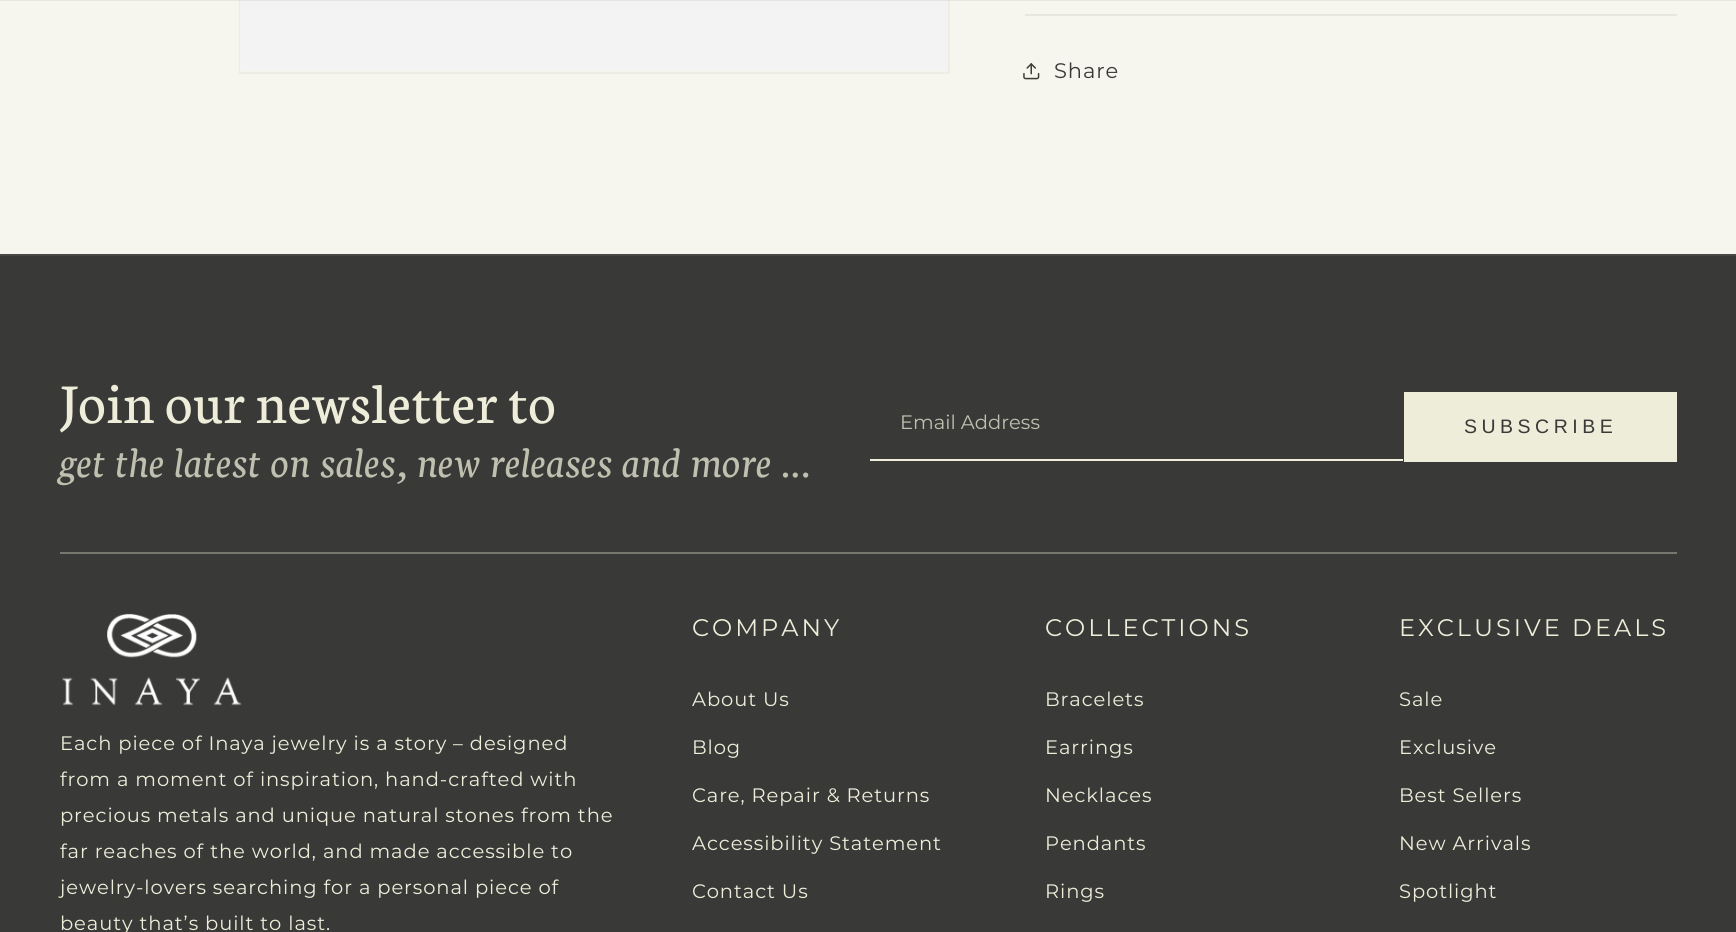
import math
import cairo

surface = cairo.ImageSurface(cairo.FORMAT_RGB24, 1736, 932)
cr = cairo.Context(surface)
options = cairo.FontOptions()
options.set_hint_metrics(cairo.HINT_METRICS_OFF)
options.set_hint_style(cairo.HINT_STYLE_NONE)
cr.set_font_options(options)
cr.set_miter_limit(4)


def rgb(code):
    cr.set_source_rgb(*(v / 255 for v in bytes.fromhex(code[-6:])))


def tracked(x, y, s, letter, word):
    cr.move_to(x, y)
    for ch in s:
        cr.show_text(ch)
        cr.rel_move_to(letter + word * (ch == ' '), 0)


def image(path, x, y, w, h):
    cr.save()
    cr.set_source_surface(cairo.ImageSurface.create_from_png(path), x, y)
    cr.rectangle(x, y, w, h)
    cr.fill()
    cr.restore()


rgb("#f6f6ee")
cr.paint()
cr.rectangle(240, -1, 709, 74)
rgb("#edede5")
cr.stroke()
rgb("#f3f3f3")
cr.rectangle(240, 0, 708, 71)
cr.fill()
cr.set_source_rgba(0.235, 0.239, 0.208, 0.08)
cr.rectangle(0, 0, 1736, 1)
cr.fill()
rgb("#e7e7df")
cr.rectangle(1025, 14, 652, 2)
cr.fill()
image("img/1.png", 1023, 63, 17, 17)
for x, y, w, h, color in [
    (0, 256, 1736, 676, "#393937"),
    (0, 254, 1736, 2, "#474744"),
    (60, 552, 1617, 2, "#76776e"),
    (1404, 392, 273, 70, "#ededda"),
    (870, 459, 533, 2, "#ededda"),
]:
    rgb(color)
    cr.rectangle(x, y, w, h)
    cr.fill()
image("img/2.png", 62, 613, 180, 93)
cr.select_font_face("Montserrat")
cr.set_font_size(21)
rgb("#393937")
tracked(1054, 78, "Share", 0.9, 0)
cr.select_font_face("Neuton")
cr.set_font_size(60)
rgb("#ededda")
tracked(60, 423, "Join our newsletter to", 0.9, 0)
cr.select_font_face("Neuton", cairo.FONT_SLANT_ITALIC)
cr.set_font_size(45)
rgb("#c0c0b1")
tracked(60, 477, "get the latest on sales, new releases and more …", 0.9, 0)
cr.select_font_face("Montserrat")
cr.set_font_size(19.5)
cr.move_to(900, 429)
cr.show_text("Email Address")
cr.select_font_face("Liberation Sans")
rgb("#393937")
tracked(1464, 433, "SUBSCRIBE", 4.5, 0)
cr.select_font_face("Montserrat")
rgb("#ededda")
for x, y, s in [
    (60, 750, "Each piece of Inaya jewelry is a story – designed"),
    (60, 786, "from a moment of inspiration, hand-crafted with"),
    (60, 822, "precious metals and unique natural stones from the"),
    (60, 858, "far reaches of the world, and made accessible to"),
    (60, 894, "jewelry-lovers searching for a personal piece of"),
    (60, 930, "beauty that’s built to last."),
]:
    tracked(x, y, s, 0.9, 0)
cr.set_font_size(24)
tracked(692, 636, "COMPANY", 3, 0)
cr.set_font_size(19.5)
for x, y, s in [
    (692, 706, "About Us"),
    (692, 754, "Blog"),
    (692, 802, "Care, Repair & Returns"),
    (692, 850, "Accessibility Statement"),
    (692, 898, "Contact Us"),
]:
    tracked(x, y, s, 0.9, 0)
cr.set_font_size(24)
tracked(1045, 636, "COLLECTIONS", 3, 0)
cr.set_font_size(19.5)
for x, y, s in [
    (1045, 706, "Bracelets"),
    (1045, 754, "Earrings"),
    (1045, 802, "Necklaces"),
    (1045, 850, "Pendants"),
    (1045, 898, "Rings"),
]:
    tracked(x, y, s, 0.9, 0)
cr.set_font_size(24)
tracked(1399, 636, "EXCLUSIVE DEALS", 3, 0)
cr.set_font_size(19.5)
for x, y, s in [
    (1399, 706, "Sale"),
    (1399, 754, "Exclusive"),
    (1399, 802, "Best Sellers"),
    (1399, 850, "New Arrivals"),
    (1399, 898, "Spotlight"),
]:
    tracked(x, y, s, 0.9, 0)
surface.write_to_png("page.png")
